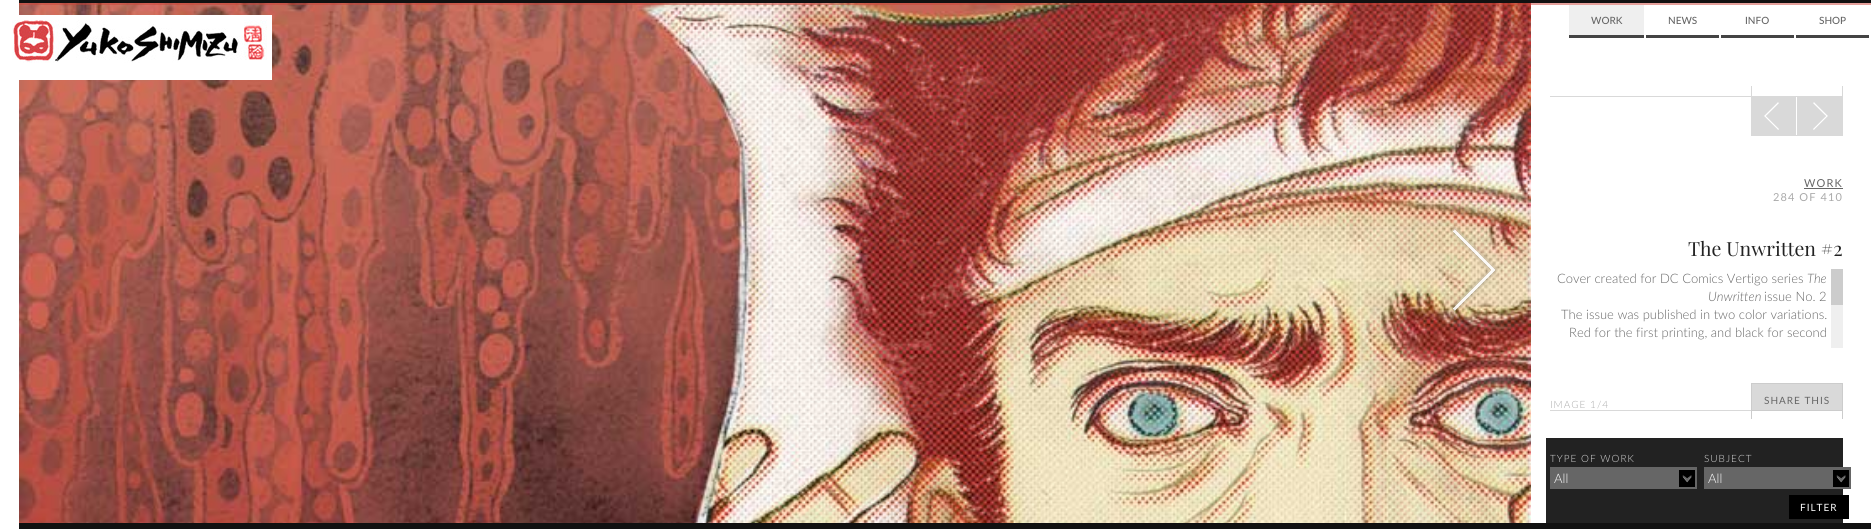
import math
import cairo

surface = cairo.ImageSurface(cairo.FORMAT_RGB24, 1871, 529)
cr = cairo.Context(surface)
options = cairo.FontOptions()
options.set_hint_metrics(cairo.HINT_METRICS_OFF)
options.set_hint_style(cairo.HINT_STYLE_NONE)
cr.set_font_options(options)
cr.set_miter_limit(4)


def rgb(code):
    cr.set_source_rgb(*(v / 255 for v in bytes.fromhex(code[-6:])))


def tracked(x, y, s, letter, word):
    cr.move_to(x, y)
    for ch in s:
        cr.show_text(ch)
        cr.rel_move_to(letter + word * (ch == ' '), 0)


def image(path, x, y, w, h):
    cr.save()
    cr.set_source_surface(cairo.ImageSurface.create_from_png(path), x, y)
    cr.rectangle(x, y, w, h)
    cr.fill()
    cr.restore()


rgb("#ffffff")
cr.paint()
rgb("#111111")
cr.rectangle(19, 0, 1852, 3)
cr.fill()
image("img/2.png", 19, 3, 1512, 520)
cr.set_source_rgba(0.8, 0.263, 0.224, 0.5)
cr.rectangle(19, 3, 1852, 2)
cr.fill()
rgb("#ffffff")
cr.rectangle(19, 15, 253, 65)
cr.fill()
image("img/1.png", 12, 20, 255, 43)
for x, y, w, h, color in [
    (1569, 5, 75, 30, "#efefef"),
    (1569, 35, 75, 3, "#444444"),
    (1646, 35, 73, 3, "#444444"),
    (1721, 35, 73, 3, "#444444"),
    (1796, 35, 73, 3, "#444444"),
]:
    rgb(color)
    cr.rectangle(x, y, w, h)
    cr.fill()
image("img/3.png", 1450, 226, 48, 88)
for x, y, w, h, color in [
    (1550, 96, 201, 1, "#d9d9d9"),
    (1842, 86, 1, 50, "#d9d9d9"),
    (1751, 96, 92, 1, "#d9d9d9"),
    (1751, 86, 1, 11, "#d9d9d9"),
    (1751, 135, 92, 1, "#d9d9d9"),
    (1751, 97, 1, 39, "#d9d9d9"),
    (1752, 97, 44, 38, "#d9d9d9"),
]:
    rgb(color)
    cr.rectangle(x, y, w, h)
    cr.fill()
image("img/4.png", 1764, 102, 15, 28)
cr.rectangle(1797, 97, 45, 38)
cr.fill()
image("img/5.png", 1813, 102, 15, 28)
for x, y, w, h, color in [
    (1804, 188, 39, 1, "#666666"),
    (1831, 305, 12, 43, "#efefef"),
    (1831, 269, 12, 36, "#cccccc"),
    (1751, 383, 92, 1, "#cccccc"),
    (1842, 383, 1, 27, "#cccccc"),
    (1751, 383, 1, 27, "#cccccc"),
    (1752, 384, 90, 26, "#d9d9d9"),
    (1550, 410, 201, 1, "#d9d9d9"),
    (1751, 410, 92, 1, "#cccccc"),
    (1842, 410, 1, 11, "#cccccc"),
    (1751, 410, 1, 11, "#cccccc"),
    (1751, 419, 92, 2, "#ffffff"),
    (1546, 438, 297, 85, "#222222"),
    (1550, 467, 147, 22, "#666666"),
]:
    rgb(color)
    cr.rectangle(x, y, w, h)
    cr.fill()
image("img/6.png", 1679, 470, 16, 17)
cr.rectangle(1704, 467, 147, 22)
cr.fill()
image("img/6.png", 1833, 470, 16, 17)
rgb("#000000")
cr.rectangle(1789, 495, 60, 24)
cr.fill()
rgb("#111111")
cr.rectangle(19, 523, 1852, 6)
cr.fill()
cr.select_font_face("Lato Medium")
cr.set_font_size(10)
rgb("#666666")
for x, y, s in [
    (1591, 24, "WORK"),
    (1668, 24, "NEWS"),
    (1745, 24, "INFO"),
    (1819, 24, "SHOP"),
]:
    cr.move_to(x, y)
    cr.show_text(s)
cr.select_font_face("Lato")
cr.set_font_size(11)
tracked(1804, 187, "WORK", 1.1, 0)
rgb("#aaaaaa")
tracked(1773, 201, "284 OF 410", 1.1, 0)
cr.select_font_face("Playfair Display")
cr.set_font_size(19.5)
rgb("#222222")
cr.move_to(1688, 256)
cr.show_text("The Unwritten #2")
cr.select_font_face("Lato Light")
cr.set_font_size(13)
rgb("#666666")
cr.move_to(1557, 283)
cr.show_text("Cover created for DC Comics Vertigo series")
cr.select_font_face("Lato Light", cairo.FONT_SLANT_ITALIC)
cr.move_to(1807, 283)
cr.show_text("The")
cr.move_to(1708, 301)
cr.show_text("Unwritten")
cr.select_font_face("Lato Light")
for x, y, s in [
    (1764, 301, "issue No. 2"),
    (1561, 319, "The issue was published in two color variations."),
    (1569, 337, "Red for the first printing, and black for second"),
]:
    cr.move_to(x, y)
    cr.show_text(s)
cr.set_font_size(10)
rgb("#aaaaaa")
tracked(1550, 408, "IMAGE 1/4", 1, 0)
cr.select_font_face("Lato")
rgb("#666666")
tracked(1764, 404, "SHARE THIS", 1, 0)
cr.select_font_face("Lato Light")
rgb("#dddddd")
tracked(1550, 462, "TYPE OF WORK", 1, 0)
cr.set_font_size(13)
rgb("#fdfdfd")
cr.move_to(1554, 483)
cr.show_text("All")
cr.set_font_size(10)
rgb("#dddddd")
tracked(1704, 462, "SUBJECT", 1, 0)
cr.set_font_size(13)
rgb("#fdfdfd")
cr.move_to(1708, 483)
cr.show_text("All")
cr.select_font_face("Lato")
cr.set_font_size(10)
tracked(1800, 511, "FILTER", 1, 0)
surface.write_to_png("page.png")
